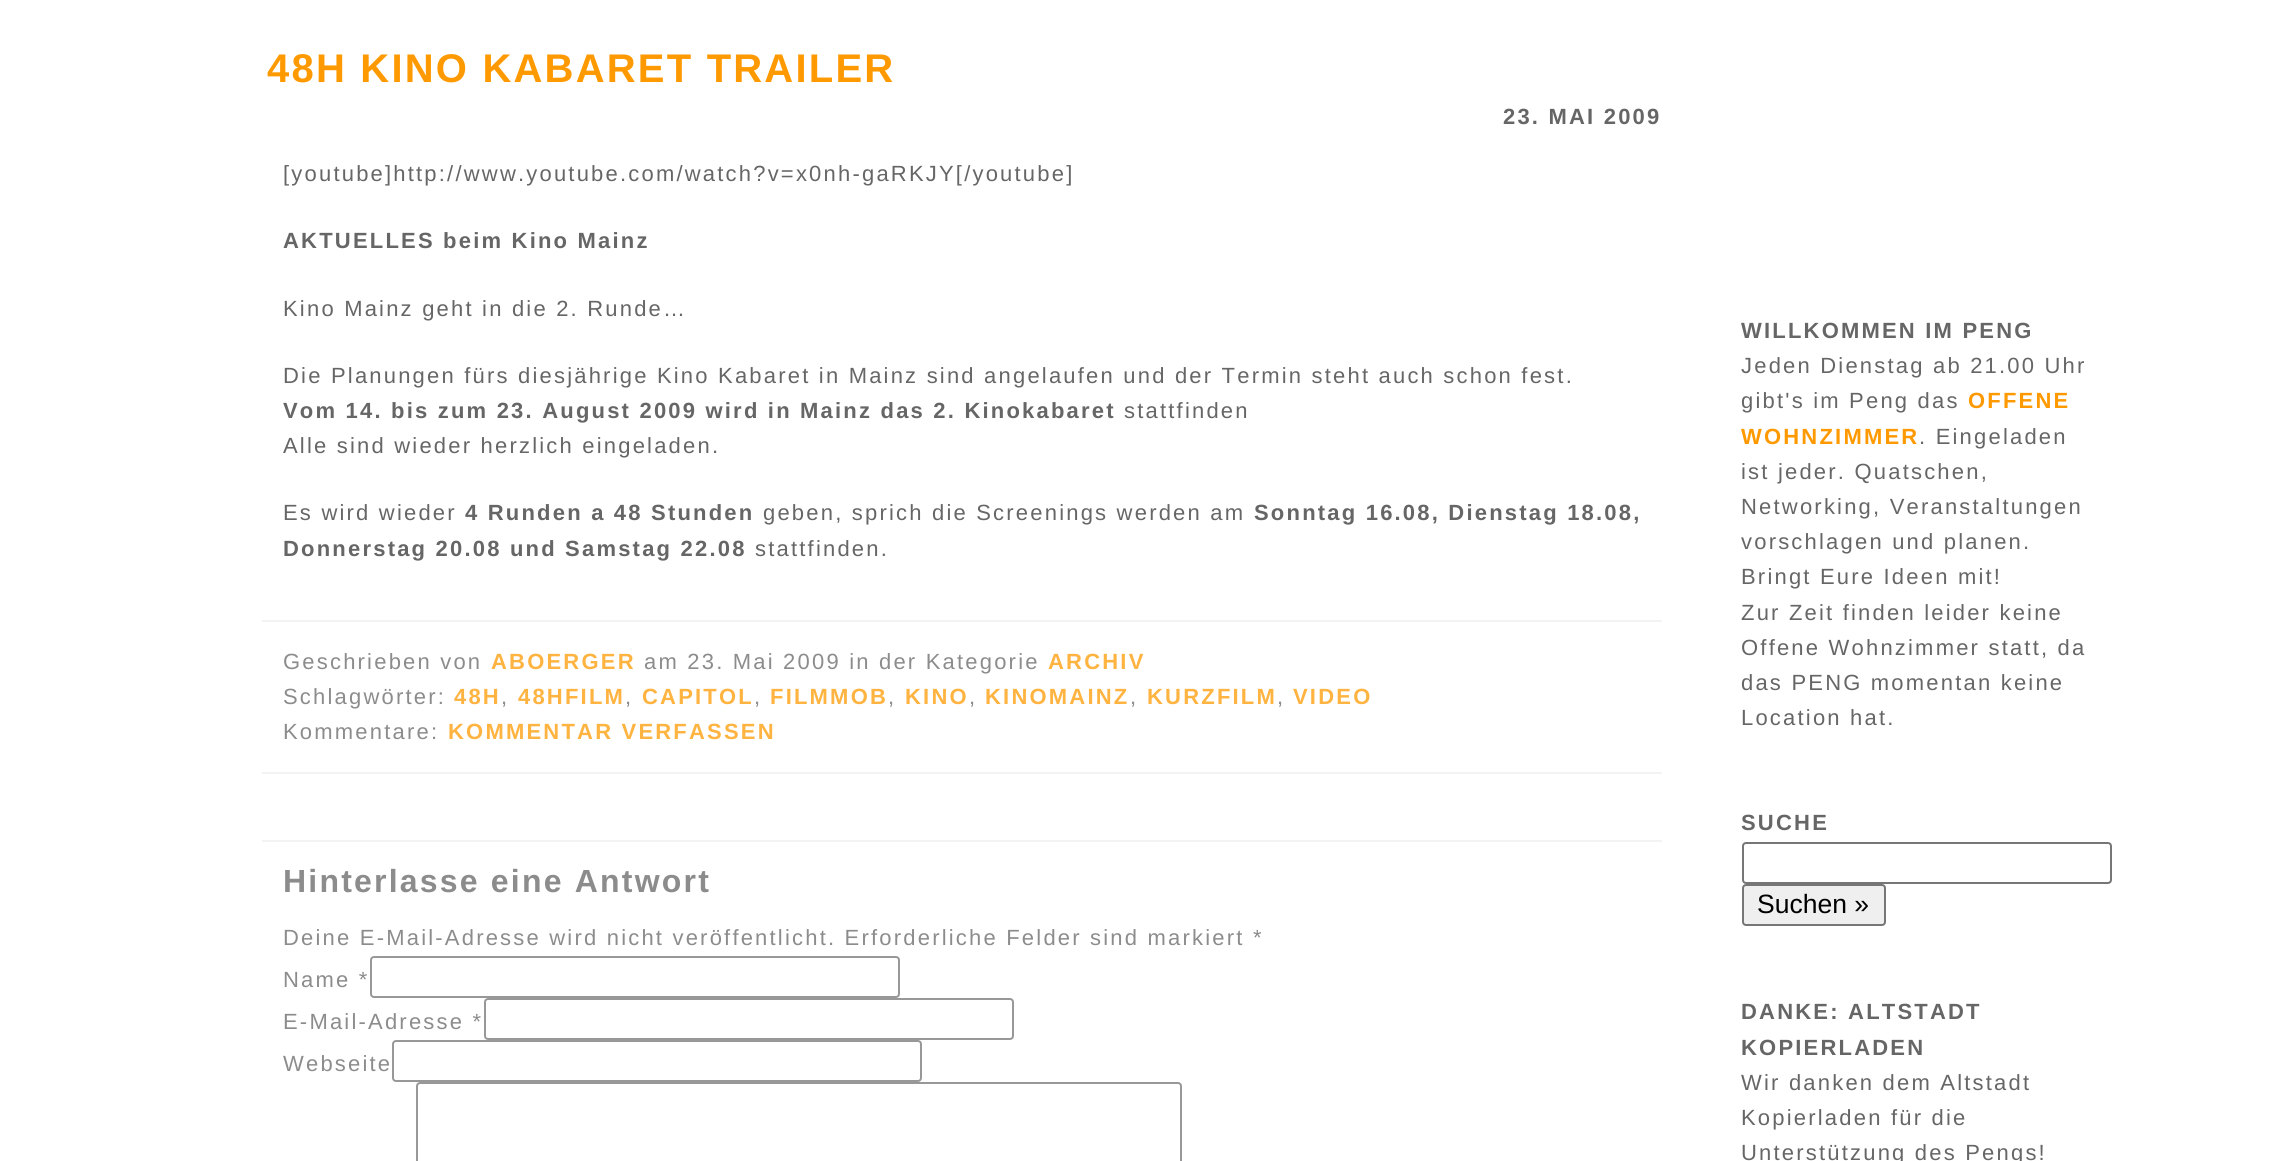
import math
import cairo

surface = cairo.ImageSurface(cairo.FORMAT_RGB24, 2295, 1161)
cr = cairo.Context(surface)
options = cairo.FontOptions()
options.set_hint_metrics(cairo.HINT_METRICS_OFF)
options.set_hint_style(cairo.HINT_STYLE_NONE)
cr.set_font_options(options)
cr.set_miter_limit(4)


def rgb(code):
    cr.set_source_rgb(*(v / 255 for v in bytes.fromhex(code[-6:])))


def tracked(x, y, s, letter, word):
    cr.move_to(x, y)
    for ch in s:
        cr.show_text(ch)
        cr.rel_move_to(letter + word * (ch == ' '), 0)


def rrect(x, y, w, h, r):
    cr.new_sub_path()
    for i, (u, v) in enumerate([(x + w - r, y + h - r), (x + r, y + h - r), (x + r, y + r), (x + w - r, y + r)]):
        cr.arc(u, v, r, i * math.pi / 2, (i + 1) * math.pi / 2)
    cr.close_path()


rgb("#ffffff")
cr.paint()
for x, y, w, h, color in [
    (262, 620, 1400, 2, "#f3f3f3"),
    (262, 772, 1400, 2, "#f3f3f3"),
    (262, 840, 1400, 2, "#f3f3f3"),
]:
    rgb(color)
    cr.rectangle(x, y, w, h)
    cr.fill()
rrect(371, 957, 528, 40, 3)
rgb("#989898")
cr.stroke()
rrect(485, 999, 528, 40, 3)
cr.stroke()
rrect(393, 1041, 528, 40, 3)
cr.stroke()
rrect(417, 1083, 764, 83, 3)
cr.stroke()
rrect(1743, 843, 368, 40, 3)
rgb("#767676")
cr.stroke()
rgb("#efefef")
rrect(1743, 885, 142, 40, 3)
cr.fill_preserve()
rgb("#767676")
cr.stroke()
cr.select_font_face("Liberation Sans", cairo.FONT_SLANT_NORMAL, cairo.FONT_WEIGHT_BOLD)
cr.set_font_size(40)
rgb("#ff9900")
tracked(267, 82, "48H KINO KABARET TRAILER", 2.2, 0)
cr.set_font_size(22)
rgb("#666666")
tracked(1503, 124, "23. MAI 2009", 2.2, 0)
cr.select_font_face("Liberation Sans")
tracked(283, 181, "[youtube]http://www.youtube.com/watch?v=x0nh-gaRKJY[/youtube]", 2.2, 0)
cr.select_font_face("Liberation Sans", cairo.FONT_SLANT_NORMAL, cairo.FONT_WEIGHT_BOLD)
tracked(283, 248, "AKTUELLES beim Kino Mainz", 2.2, 0)
cr.select_font_face("Liberation Sans")
tracked(283, 316, "Kino Mainz geht in die 2. Runde…", 2.2, 0)
tracked(283, 383, "Die Planungen fürs diesjährige Kino Kabaret in Mainz sind angelaufen und der Termin steht auch schon fest.", 2.2, 0)
cr.select_font_face("Liberation Sans", cairo.FONT_SLANT_NORMAL, cairo.FONT_WEIGHT_BOLD)
tracked(283, 418, "Vom 14. bis zum 23. August 2009 wird in Mainz das 2. Kinokabaret", 2.2, 0)
cr.select_font_face("Liberation Sans")
for x, y, s in [
    (1124, 418, "stattfinden"),
    (283, 453, "Alle sind wieder herzlich eingeladen."),
    (283, 520, "Es wird wieder"),
]:
    tracked(x, y, s, 2.2, 0)
cr.select_font_face("Liberation Sans", cairo.FONT_SLANT_NORMAL, cairo.FONT_WEIGHT_BOLD)
tracked(465, 520, "4 Runden a 48 Stunden", 2.2, 0)
cr.select_font_face("Liberation Sans")
tracked(763, 520, "geben, sprich die Screenings werden am", 2.2, 0)
cr.select_font_face("Liberation Sans", cairo.FONT_SLANT_NORMAL, cairo.FONT_WEIGHT_BOLD)
tracked(1254, 520, "Sonntag 16.08, Dienstag 18.08,", 2.2, 0)
tracked(283, 556, "Donnerstag 20.08 und Samstag 22.08", 2.2, 0)
cr.select_font_face("Liberation Sans")
tracked(755, 556, "stattfinden.", 2.2, 0)
rgb("#8c8c8c")
tracked(283, 669, "Geschrieben von", 2.2, 0)
cr.select_font_face("Liberation Sans", cairo.FONT_SLANT_NORMAL, cairo.FONT_WEIGHT_BOLD)
rgb("#ffb340")
tracked(491, 669, "ABOERGER", 2.2, 0)
cr.select_font_face("Liberation Sans")
rgb("#8c8c8c")
tracked(644, 669, "am 23. Mai 2009 in der Kategorie", 2.2, 0)
cr.select_font_face("Liberation Sans", cairo.FONT_SLANT_NORMAL, cairo.FONT_WEIGHT_BOLD)
rgb("#ffb340")
tracked(1048, 669, "ARCHIV", 2.2, 0)
cr.select_font_face("Liberation Sans")
rgb("#8c8c8c")
tracked(283, 704, "Schlagwörter:", 2.2, 0)
cr.select_font_face("Liberation Sans", cairo.FONT_SLANT_NORMAL, cairo.FONT_WEIGHT_BOLD)
rgb("#ffb340")
tracked(454, 704, "48H", 2.2, 0)
cr.select_font_face("Liberation Sans")
rgb("#8c8c8c")
tracked(501, 704, ",", 2.2, 0)
cr.select_font_face("Liberation Sans", cairo.FONT_SLANT_NORMAL, cairo.FONT_WEIGHT_BOLD)
rgb("#ffb340")
tracked(518, 704, "48HFILM", 2.2, 0)
cr.select_font_face("Liberation Sans")
rgb("#8c8c8c")
tracked(625, 704, ",", 2.2, 0)
cr.select_font_face("Liberation Sans", cairo.FONT_SLANT_NORMAL, cairo.FONT_WEIGHT_BOLD)
rgb("#ffb340")
tracked(642, 704, "CAPITOL", 2.2, 0)
cr.select_font_face("Liberation Sans")
rgb("#8c8c8c")
tracked(754, 704, ",", 2.2, 0)
cr.select_font_face("Liberation Sans", cairo.FONT_SLANT_NORMAL, cairo.FONT_WEIGHT_BOLD)
rgb("#ffb340")
tracked(770, 704, "FILMMOB", 2.2, 0)
cr.select_font_face("Liberation Sans")
rgb("#8c8c8c")
tracked(888, 704, ",", 2.2, 0)
cr.select_font_face("Liberation Sans", cairo.FONT_SLANT_NORMAL, cairo.FONT_WEIGHT_BOLD)
rgb("#ffb340")
tracked(905, 704, "KINO", 2.2, 0)
cr.select_font_face("Liberation Sans")
rgb("#8c8c8c")
tracked(969, 704, ",", 2.2, 0)
cr.select_font_face("Liberation Sans", cairo.FONT_SLANT_NORMAL, cairo.FONT_WEIGHT_BOLD)
rgb("#ffb340")
tracked(985, 704, "KINOMAINZ", 2.2, 0)
cr.select_font_face("Liberation Sans")
rgb("#8c8c8c")
tracked(1130, 704, ",", 2.2, 0)
cr.select_font_face("Liberation Sans", cairo.FONT_SLANT_NORMAL, cairo.FONT_WEIGHT_BOLD)
rgb("#ffb340")
tracked(1147, 704, "KURZFILM", 2.2, 0)
cr.select_font_face("Liberation Sans")
rgb("#8c8c8c")
tracked(1277, 704, ",", 2.2, 0)
cr.select_font_face("Liberation Sans", cairo.FONT_SLANT_NORMAL, cairo.FONT_WEIGHT_BOLD)
rgb("#ffb340")
tracked(1293, 704, "VIDEO", 2.2, 0)
cr.select_font_face("Liberation Sans")
rgb("#8c8c8c")
tracked(283, 739, "Kommentare:", 2.2, 0)
cr.select_font_face("Liberation Sans", cairo.FONT_SLANT_NORMAL, cairo.FONT_WEIGHT_BOLD)
rgb("#ffb340")
tracked(448, 739, "KOMMENTAR VERFASSEN", 2.2, 0)
cr.set_font_size(32)
rgb("#8c8c8c")
tracked(283, 892, "Hinterlasse eine Antwort", 2.2, 0)
cr.select_font_face("Liberation Sans")
cr.set_font_size(22)
for x, y, s in [
    (283, 945, "Deine E-Mail-Adresse wird nicht veröffentlicht. Erforderliche Felder sind markiert *"),
    (283, 987, "Name *"),
    (283, 1029, "E-Mail-Adresse *"),
    (283, 1071, "Webseite"),
]:
    tracked(x, y, s, 2.2, 0)
cr.select_font_face("Liberation Sans", cairo.FONT_SLANT_NORMAL, cairo.FONT_WEIGHT_BOLD)
rgb("#666666")
tracked(1741, 338, "WILLKOMMEN IM PENG", 2.2, 0)
cr.select_font_face("Liberation Sans")
tracked(1741, 373, "Jeden Dienstag ab 21.00 Uhr", 2.2, 0)
tracked(1741, 408, "gibt's im Peng das", 2.2, 0)
cr.select_font_face("Liberation Sans", cairo.FONT_SLANT_NORMAL, cairo.FONT_WEIGHT_BOLD)
rgb("#ff9900")
tracked(1968, 408, "OFFENE", 2.2, 0)
tracked(1741, 444, "WOHNZIMMER", 2.2, 0)
cr.select_font_face("Liberation Sans")
rgb("#666666")
for x, y, s in [
    (1919, 444, ". Eingeladen"),
    (1741, 479, "ist jeder. Quatschen,"),
    (1741, 514, "Networking, Veranstaltungen"),
    (1741, 549, "vorschlagen und planen."),
    (1741, 584, "Bringt Eure Ideen mit!"),
    (1741, 620, "Zur Zeit finden leider keine"),
    (1741, 655, "Offene Wohnzimmer statt, da"),
    (1741, 690, "das PENG momentan keine"),
    (1741, 725, "Location hat."),
]:
    tracked(x, y, s, 2.2, 0)
cr.select_font_face("Liberation Sans", cairo.FONT_SLANT_NORMAL, cairo.FONT_WEIGHT_BOLD)
tracked(1741, 830, "SUCHE", 2.2, 0)
cr.select_font_face("Liberation Sans")
cr.set_font_size(26.5)
rgb("#000000")
cr.move_to(1757, 913)
cr.show_text("Suchen »")
cr.select_font_face("Liberation Sans", cairo.FONT_SLANT_NORMAL, cairo.FONT_WEIGHT_BOLD)
cr.set_font_size(22)
rgb("#666666")
tracked(1741, 1019, "DANKE: ALTSTADT", 2.2, 0)
tracked(1741, 1055, "KOPIERLADEN", 2.2, 0)
cr.select_font_face("Liberation Sans")
for x, y, s in [
    (1741, 1090, "Wir danken dem Altstadt"),
    (1741, 1125, "Kopierladen für die"),
    (1741, 1160, "Unterstützung des Pengs!"),
]:
    tracked(x, y, s, 2.2, 0)
surface.write_to_png("page.png")
